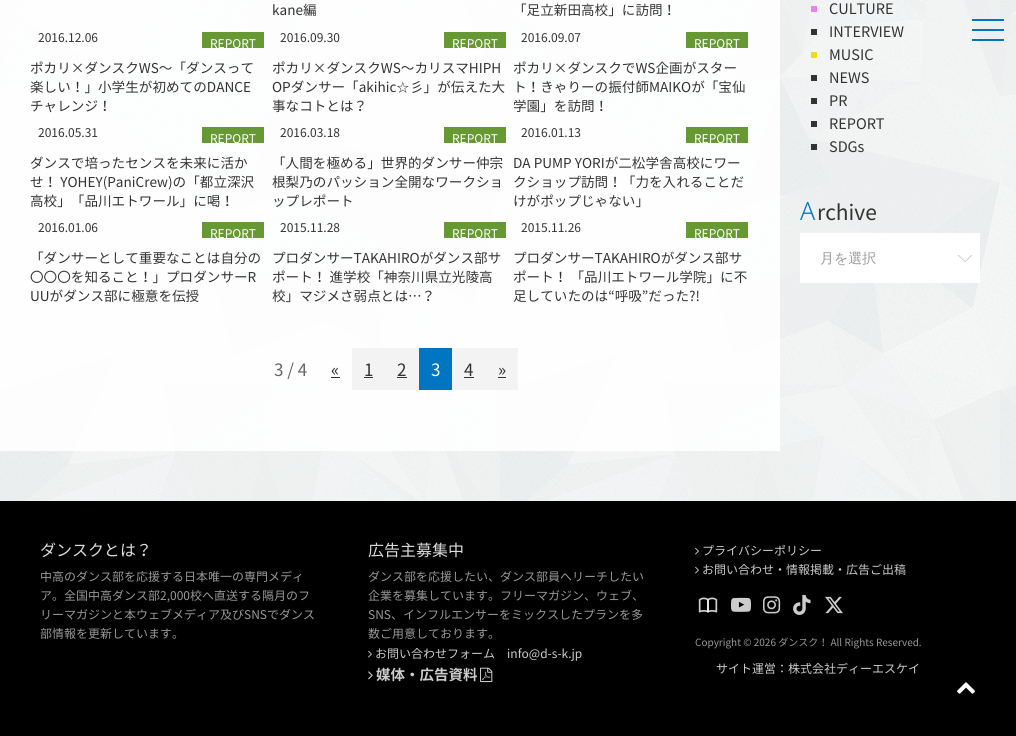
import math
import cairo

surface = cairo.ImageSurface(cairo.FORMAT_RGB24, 1016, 736)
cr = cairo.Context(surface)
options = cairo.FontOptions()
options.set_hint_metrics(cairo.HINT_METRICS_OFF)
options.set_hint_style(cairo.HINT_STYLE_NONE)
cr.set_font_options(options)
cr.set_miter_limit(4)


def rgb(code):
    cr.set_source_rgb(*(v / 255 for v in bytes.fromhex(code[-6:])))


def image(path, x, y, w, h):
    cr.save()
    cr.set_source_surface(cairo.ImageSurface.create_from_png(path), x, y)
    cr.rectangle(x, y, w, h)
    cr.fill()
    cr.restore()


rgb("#ffffff")
cr.paint()
image("img/1.png", 0, 0, 1016, 501)
cr.set_source_rgba(1, 1, 1, 0.9)
cr.rectangle(0, 0, 780, 451)
cr.fill()
rgb("#669933")
cr.rectangle(202, 32, 62, 16)
cr.rectangle(444, 32, 62, 16)
cr.rectangle(686, 32, 62, 16)
cr.rectangle(202, 127, 62, 16)
cr.rectangle(444, 127, 62, 16)
cr.rectangle(686, 127, 62, 16)
cr.rectangle(202, 222, 62, 16)
cr.rectangle(444, 222, 62, 16)
cr.rectangle(686, 222, 62, 16)
cr.fill()
rgb("#333333")
cr.rectangle(331, 377, 9, 1)
cr.fill()
rgb("#f3f3f3")
cr.rectangle(352, 348, 67, 42)
cr.fill()
rgb("#333333")
cr.rectangle(364, 377, 9, 1)
cr.rectangle(397, 377, 10, 1)
cr.fill()
rgb("#0075c2")
cr.rectangle(419, 348, 33, 42)
cr.fill()
rgb("#f3f3f3")
cr.rectangle(452, 348, 66, 42)
cr.fill()
rgb("#333333")
cr.rectangle(464, 377, 10, 1)
cr.rectangle(498, 377, 8, 1)
cr.fill()
rgb("#ee81ef")
cr.rectangle(811, 6, 6, 6)
cr.fill()
rgb("#333333")
cr.rectangle(811, 29, 6, 6)
cr.fill()
rgb("#f4d81d")
cr.rectangle(811, 52, 6, 6)
cr.fill()
rgb("#333333")
cr.rectangle(811, 75, 6, 6)
cr.rectangle(811, 98, 6, 6)
cr.rectangle(811, 121, 6, 6)
cr.rectangle(811, 144, 6, 6)
cr.fill()
rgb("#ffffff")
cr.rectangle(800, 233, 180, 50)
cr.fill()
image("img/2.png", 958, 255, 14, 7)
for x, y, w, h, color in [
    (972, 29, 32, 2, "#0075c2"),
    (972, 19, 32, 2, "#0075c2"),
    (972, 39, 32, 2, "#0075c2"),
    (0, 501, 1016, 235, "#000000"),
]:
    rgb(color)
    cr.rectangle(x, y, w, h)
    cr.fill()
image("img/3.png", 368, 650, 4, 8)
image("img/4.png", 368, 671, 5, 9)
image("img/5.png", 480, 667, 13, 16)
image("img/3.png", 695, 547, 4, 8)
image("img/3.png", 695, 566, 4, 8)
image("img/6.png", 698, 597, 20, 16)
image("img/7.png", 731, 597, 20, 15)
image("img/8.png", 763, 596, 18, 18)
image("img/9.png", 793, 595, 18, 20)
image("img/10.png", 825, 596, 18, 18)
image("img/11.png", 957, 682, 18, 12)
cr.select_font_face("Noto Sans JP")
cr.set_font_size(13.6)
rgb("#333333")
cr.move_to(272, 15)
cr.show_text("kane編")
cr.move_to(513, 15)
cr.show_text("「足立新田高校」に訪問！")
cr.set_font_size(12)
cr.move_to(38, 42)
cr.show_text("2016.12.06")
rgb("#ffffff")
cr.move_to(210, 48)
cr.show_text("REPORT")
cr.set_font_size(13.6)
rgb("#333333")
for x, y, s in [
    (30, 73, "ポカリ×ダンスクWS〜「ダンスって"),
    (30, 92, "楽しい！」小学生が初めてのDANCE"),
    (30, 111, "チャレンジ！"),
]:
    cr.move_to(x, y)
    cr.show_text(s)
cr.set_font_size(12)
cr.move_to(280, 42)
cr.show_text("2016.09.30")
rgb("#ffffff")
cr.move_to(452, 48)
cr.show_text("REPORT")
cr.set_font_size(13.6)
rgb("#333333")
cr.move_to(272, 73)
cr.show_text("ポカリ×ダンスクWS〜カリスマHIPH")
cr.move_to(272, 92)
cr.show_text("OPダンサー「akihic")
cr.select_font_face("WenQuanYi Zen Hei Medium")
cr.move_to(396, 92)
cr.show_text("☆")
cr.select_font_face("Noto Sans JP")
cr.move_to(410, 92)
cr.show_text("彡」が伝えた大")
cr.move_to(272, 111)
cr.show_text("事なコトとは？")
cr.set_font_size(12)
cr.move_to(521, 42)
cr.show_text("2016.09.07")
rgb("#ffffff")
cr.move_to(694, 48)
cr.show_text("REPORT")
cr.set_font_size(13.6)
rgb("#333333")
for x, y, s in [
    (513, 73, "ポカリ×ダンスクでWS企画がスター"),
    (513, 92, "ト！きゃりーの振付師MAIKOが「宝仙"),
    (513, 111, "学園」を訪問！"),
]:
    cr.move_to(x, y)
    cr.show_text(s)
cr.set_font_size(12)
cr.move_to(38, 137)
cr.show_text("2016.05.31")
rgb("#ffffff")
cr.move_to(210, 143)
cr.show_text("REPORT")
cr.set_font_size(13.6)
rgb("#333333")
for x, y, s in [
    (30, 168, "ダンスで培ったセンスを未来に活か"),
    (30, 187, "せ！ YOHEY(PaniCrew)の「都立深沢"),
    (30, 206, "高校」「品川エトワール」に喝！"),
]:
    cr.move_to(x, y)
    cr.show_text(s)
cr.set_font_size(12)
cr.move_to(280, 137)
cr.show_text("2016.03.18")
rgb("#ffffff")
cr.move_to(452, 143)
cr.show_text("REPORT")
cr.set_font_size(13.6)
rgb("#333333")
for x, y, s in [
    (272, 168, "「人間を極める」世界的ダンサー仲宗"),
    (272, 187, "根梨乃のパッション全開なワークショ"),
    (272, 206, "ップレポート"),
]:
    cr.move_to(x, y)
    cr.show_text(s)
cr.set_font_size(12)
cr.move_to(521, 137)
cr.show_text("2016.01.13")
rgb("#ffffff")
cr.move_to(694, 143)
cr.show_text("REPORT")
cr.set_font_size(13.6)
rgb("#333333")
for x, y, s in [
    (513, 168, "DA PUMP YORIが二松学舎高校にワー"),
    (513, 187, "クショップ訪問！「力を入れることだ"),
    (513, 206, "けがポップじゃない」"),
]:
    cr.move_to(x, y)
    cr.show_text(s)
cr.set_font_size(12)
cr.move_to(38, 232)
cr.show_text("2016.01.06")
rgb("#ffffff")
cr.move_to(210, 238)
cr.show_text("REPORT")
cr.set_font_size(13.6)
rgb("#333333")
for x, y, s in [
    (30, 263, "「ダンサーとして重要なことは自分の"),
    (30, 282, "〇〇〇を知ること！」プロダンサーR"),
    (30, 301, "UUがダンス部に極意を伝授"),
]:
    cr.move_to(x, y)
    cr.show_text(s)
cr.set_font_size(12)
cr.move_to(280, 232)
cr.show_text("2015.11.28")
rgb("#ffffff")
cr.move_to(452, 238)
cr.show_text("REPORT")
cr.set_font_size(13.6)
rgb("#333333")
for x, y, s in [
    (272, 263, "プロダンサーTAKAHIROがダンス部サ"),
    (272, 282, "ポート！ 進学校「神奈川県立光陵高"),
    (272, 301, "校」マジメさ弱点とは…？"),
]:
    cr.move_to(x, y)
    cr.show_text(s)
cr.set_font_size(12)
cr.move_to(521, 232)
cr.show_text("2015.11.26")
rgb("#ffffff")
cr.move_to(694, 238)
cr.show_text("REPORT")
cr.set_font_size(13.6)
rgb("#333333")
for x, y, s in [
    (513, 263, "プロダンサーTAKAHIROがダンス部サ"),
    (513, 282, "ポート！ 「品川エトワール学院」に不"),
    (513, 301, "足していたのは“呼吸”だった?!"),
]:
    cr.move_to(x, y)
    cr.show_text(s)
cr.set_font_size(17)
rgb("#666666")
cr.move_to(274, 376)
cr.show_text("3 / 4")
rgb("#333333")
for x, y, s in [
    (331, 376, "«"),
    (364, 376, "1"),
    (397, 376, "2"),
]:
    cr.move_to(x, y)
    cr.show_text(s)
rgb("#ffffff")
cr.move_to(431, 376)
cr.show_text("3")
rgb("#333333")
cr.move_to(464, 376)
cr.show_text("4")
cr.move_to(498, 376)
cr.show_text("»")
cr.set_font_size(14.5)
for x, y, s in [
    (829, 14, "CULTURE"),
    (829, 37, "INTERVIEW"),
    (829, 60, "MUSIC"),
    (829, 83, "NEWS"),
    (829, 106, "PR"),
    (829, 129, "REPORT"),
    (829, 152, "SDGs"),
]:
    cr.move_to(x, y)
    cr.show_text(s)
cr.select_font_face("Noto Sans Light")
cr.set_font_size(25)
rgb("#0075c2")
cr.move_to(800, 220)
cr.show_text("A")
cr.select_font_face("Noto Sans JP")
cr.set_font_size(21)
rgb("#333333")
cr.move_to(817, 220)
cr.show_text("rchive")
cr.select_font_face("WenQuanYi Zen Hei Medium")
cr.set_font_size(14)
rgb("#999999")
cr.move_to(820, 263)
cr.show_text("月を選択")
cr.select_font_face("Noto Sans JP")
cr.set_font_size(16)
rgb("#dddddd")
cr.move_to(40, 556)
cr.show_text("ダンスクとは？")
cr.set_font_size(12)
rgb("#999999")
for x, y, s in [
    (40, 581, "中高のダンス部を応援する日本唯一の専門メディ"),
    (40, 600, "ア。全国中高ダンス部2,000校へ直送する隔月のフ"),
    (40, 619, "リーマガジンと本ウェブメディア及びSNSでダンス"),
    (40, 638, "部情報を更新しています。"),
]:
    cr.move_to(x, y)
    cr.show_text(s)
cr.set_font_size(16)
rgb("#dddddd")
cr.move_to(368, 556)
cr.show_text("広告主募集中")
cr.set_font_size(12)
rgb("#999999")
for x, y, s in [
    (368, 581, "ダンス部を応援したい、ダンス部員へリーチしたい"),
    (368, 600, "企業を募集しています。フリーマガジン、ウェブ、"),
    (368, 619, "SNS、インフルエンサーをミックスしたプランを多"),
    (368, 638, "数ご用意しております。"),
]:
    cr.move_to(x, y)
    cr.show_text(s)
rgb("#cccccc")
cr.move_to(375, 658)
cr.show_text("お問い合わせフォーム")
cr.move_to(507, 658)
cr.show_text("info@d-s-k.jp")
cr.select_font_face("Noto Sans JP", cairo.FONT_SLANT_NORMAL, cairo.FONT_WEIGHT_BOLD)
cr.set_font_size(14.5)
cr.move_to(376, 680)
cr.show_text("媒体・広告資料")
cr.select_font_face("Noto Sans JP")
cr.set_font_size(12)
cr.move_to(702, 555)
cr.show_text("プライバシーポリシー")
cr.move_to(702, 574)
cr.show_text("お問い合わせ・情報掲載・広告ご出稿")
cr.set_font_size(10)
rgb("#999999")
cr.move_to(695, 646)
cr.show_text("Copyright © 2026 ダンスク！ All Rights Reserved.")
cr.set_font_size(12)
rgb("#cccccc")
cr.move_to(716, 673)
cr.show_text("サイト運営：株式会社ディーエスケイ")
surface.write_to_png("page.png")
